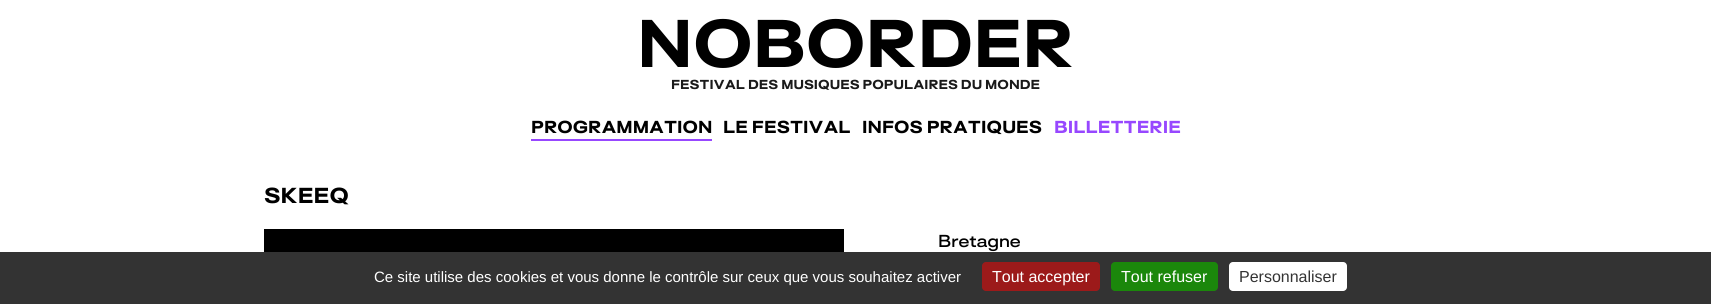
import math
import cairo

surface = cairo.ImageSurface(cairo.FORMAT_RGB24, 1711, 304)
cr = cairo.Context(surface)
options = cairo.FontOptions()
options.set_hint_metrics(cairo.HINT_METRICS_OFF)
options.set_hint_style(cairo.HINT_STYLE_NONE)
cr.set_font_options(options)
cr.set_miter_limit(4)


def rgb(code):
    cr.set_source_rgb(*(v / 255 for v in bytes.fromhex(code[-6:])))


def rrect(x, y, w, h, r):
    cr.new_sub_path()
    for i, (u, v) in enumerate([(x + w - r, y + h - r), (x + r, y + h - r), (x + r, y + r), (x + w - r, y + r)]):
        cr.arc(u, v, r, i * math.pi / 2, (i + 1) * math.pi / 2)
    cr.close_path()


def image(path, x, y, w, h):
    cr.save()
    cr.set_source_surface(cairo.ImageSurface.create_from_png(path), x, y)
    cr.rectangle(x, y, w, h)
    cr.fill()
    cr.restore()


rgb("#ffffff")
cr.paint()
rgb("#9747ff")
cr.rectangle(531, 139, 181, 2)
cr.fill()
image("img/1.png", 264, 229, 580, 23)
rgb("#333333")
cr.rectangle(0, 252, 1711, 52)
cr.fill()
rgb("#9c1a1a")
rrect(982, 262, 118, 29, 4)
cr.fill()
rgb("#1b870b")
rrect(1111, 262, 107, 29, 4)
cr.fill()
rgb("#ffffff")
rrect(1229, 262, 118, 29, 4)
cr.fill()
cr.select_font_face("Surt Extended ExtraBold")
cr.set_font_size(62)
rgb("#000000")
cr.move_to(637, 67)
cr.show_text("NOBORDER")
cr.set_font_size(12)
rgb("#1a1a1a")
cr.move_to(671, 89)
cr.show_text("FESTIVAL DES MUSIQUES POPULAIRES DU MONDE")
cr.set_font_size(16)
rgb("#000000")
for x, y, s in [
    (531, 133, "PROGRAMMATION"),
    (723, 133, "LE FESTIVAL"),
    (862, 133, "INFOS PRATIQUES"),
]:
    cr.move_to(x, y)
    cr.show_text(s)
rgb("#9747ff")
cr.move_to(1054, 133)
cr.show_text("BILLETTERIE")
cr.set_font_size(20)
rgb("#000000")
cr.move_to(264, 203)
cr.show_text("SKEEQ")
cr.select_font_face("Surt Extended SemiBold")
cr.set_font_size(16)
cr.move_to(938, 247)
cr.show_text("Bretagne")
cr.select_font_face("Liberation Sans")
cr.set_font_size(15)
rgb("#ffffff")
cr.move_to(374, 282)
cr.show_text("Ce site utilise des cookies et vous donne le contrôle sur ceux que vous souhaitez activer")
cr.set_font_size(16)
cr.move_to(992, 282)
cr.show_text("Tout accepter")
cr.move_to(1121, 282)
cr.show_text("Tout refuser")
rgb("#333333")
cr.move_to(1239, 282)
cr.show_text("Personnaliser")
surface.write_to_png("page.png")
